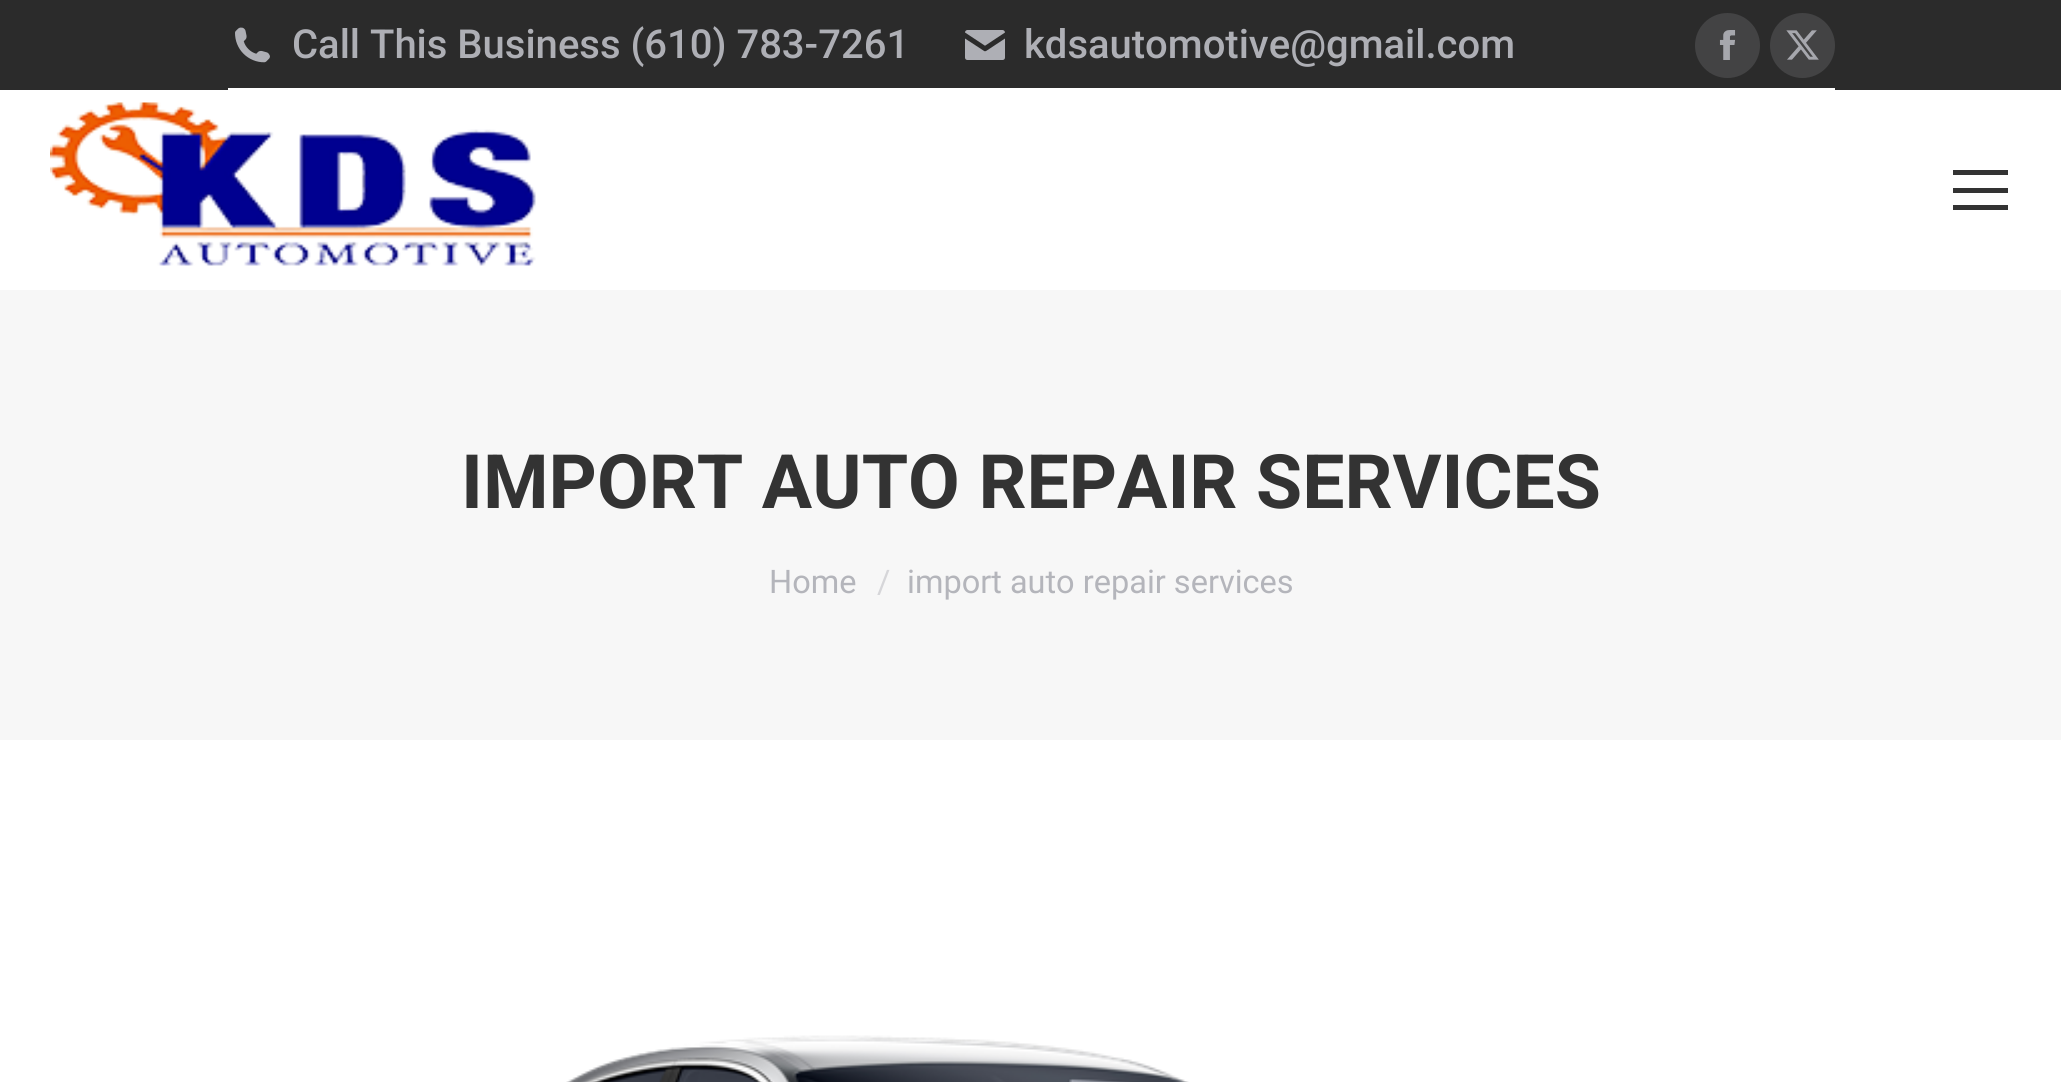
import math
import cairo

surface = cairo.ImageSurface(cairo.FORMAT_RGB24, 2061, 1082)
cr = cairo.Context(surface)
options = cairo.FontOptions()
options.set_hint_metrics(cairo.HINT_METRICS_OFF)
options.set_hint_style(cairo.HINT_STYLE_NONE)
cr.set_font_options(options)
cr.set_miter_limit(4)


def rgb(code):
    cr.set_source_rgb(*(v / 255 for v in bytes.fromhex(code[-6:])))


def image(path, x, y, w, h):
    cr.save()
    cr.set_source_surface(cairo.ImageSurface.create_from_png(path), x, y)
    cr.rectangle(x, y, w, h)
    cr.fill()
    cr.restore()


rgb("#ffffff")
cr.paint()
rgb("#2b2b2b")
cr.rectangle(0, 0, 2061, 90)
cr.fill()
image("img/1.png", 235, 27, 35, 36)
image("img/2.png", 965, 30, 40, 30)
rgb("#434344")
cr.arc(1727.5, 45.5, 32.5, 0, 2 * math.pi)
cr.fill()
image("img/3.png", 1719, 30, 17, 30)
cr.arc(1802.5, 45.5, 32.5, 0, 2 * math.pi)
cr.fill()
image("img/4.png", 1786, 30, 33, 30)
rgb("#ffffff")
cr.rectangle(228, 88, 1607, 2)
cr.fill()
image("img/5.png", 50, 102, 486, 164)
for x, y, w, h, color in [
    (1953, 170, 55, 5, "#333333"),
    (1953, 188, 55, 5, "#333333"),
    (1953, 205, 55, 5, "#333333"),
    (0, 290, 2061, 450, "#f7f7f7"),
]:
    rgb(color)
    cr.rectangle(x, y, w, h)
    cr.fill()
image("img/6.png", 566, 1035, 623, 47)
cr.select_font_face("Roboto Medium")
cr.set_font_size(40)
rgb("#aeafb5")
cr.move_to(292, 58)
cr.show_text("Call This Business (610) 783-7261")
cr.move_to(1024, 58)
cr.show_text("kdsautomotive@gmail.com")
cr.select_font_face("Roboto", cairo.FONT_SLANT_NORMAL, cairo.FONT_WEIGHT_BOLD)
cr.set_font_size(75)
rgb("#333333")
cr.move_to(461, 508)
cr.show_text("IMPORT AUTO REPAIR SERVICES")
cr.select_font_face("Roboto")
cr.set_font_size(32.5)
rgb("#b4b5bb")
cr.move_to(769, 593)
cr.show_text("Home")
rgb("#d6d6d9")
cr.move_to(877, 593)
cr.show_text("/")
rgb("#b4b5bb")
cr.move_to(907, 593)
cr.show_text("import auto repair services")
surface.write_to_png("page.png")
